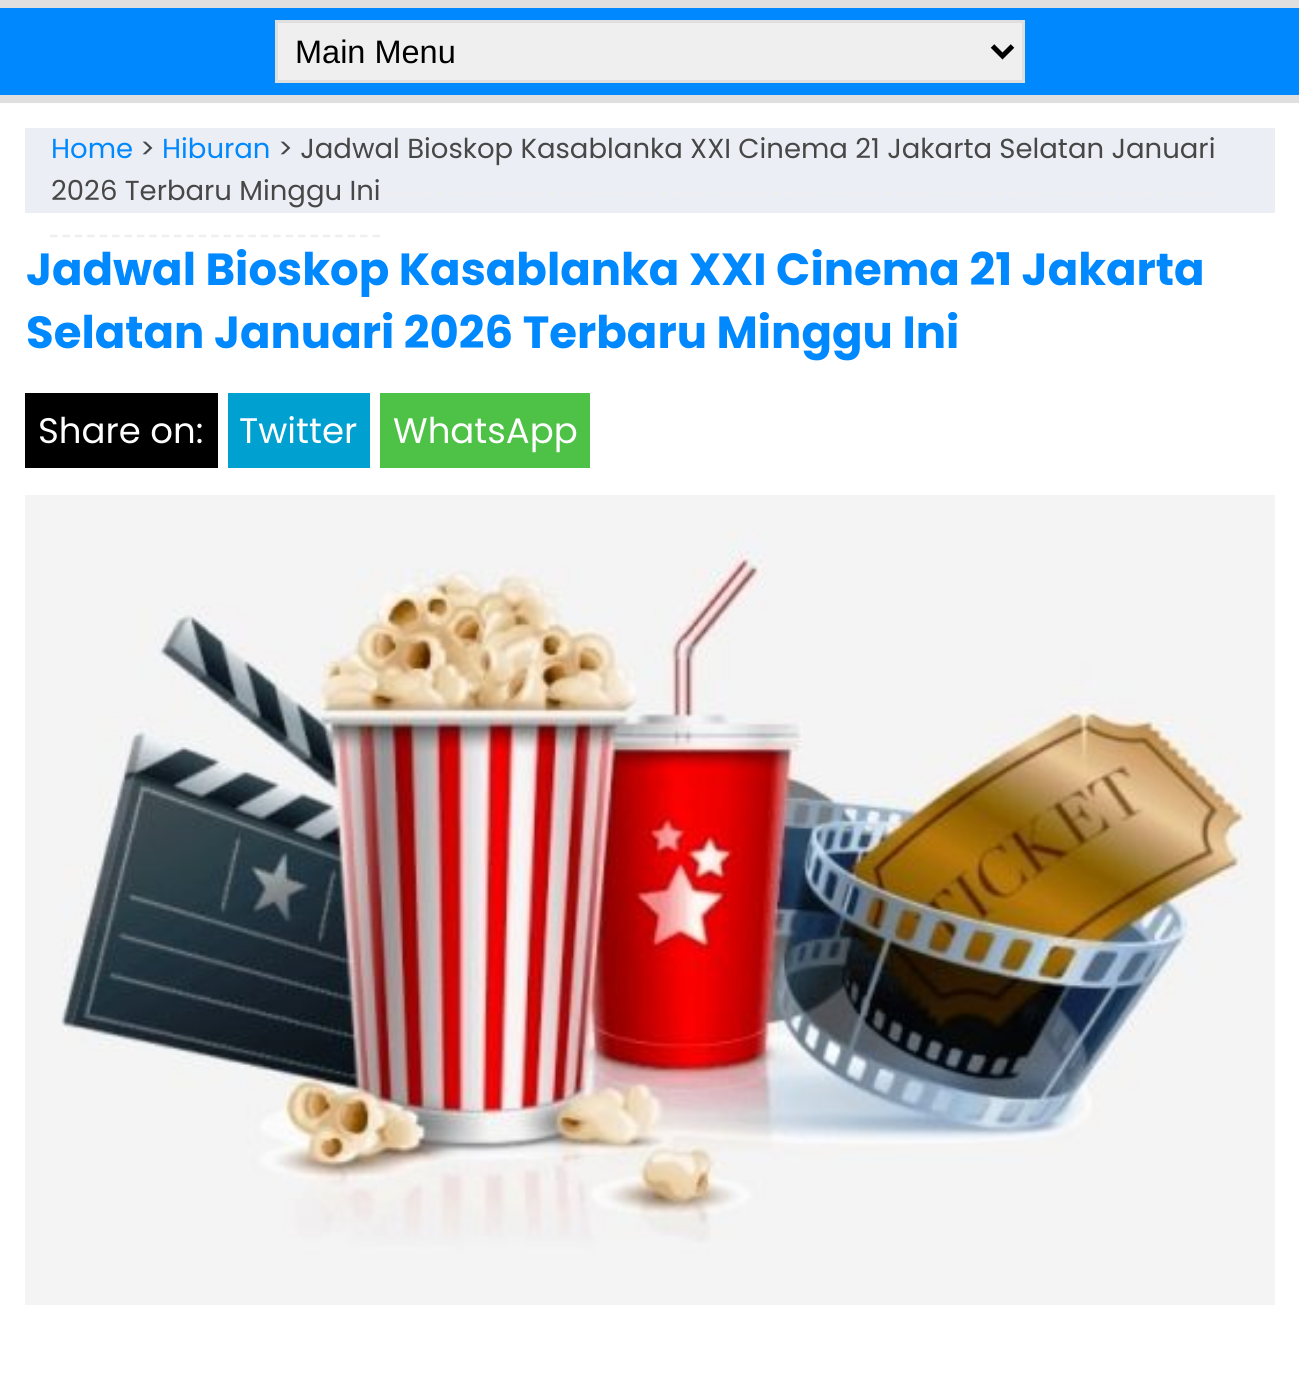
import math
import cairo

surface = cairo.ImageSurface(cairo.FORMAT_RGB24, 1299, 1399)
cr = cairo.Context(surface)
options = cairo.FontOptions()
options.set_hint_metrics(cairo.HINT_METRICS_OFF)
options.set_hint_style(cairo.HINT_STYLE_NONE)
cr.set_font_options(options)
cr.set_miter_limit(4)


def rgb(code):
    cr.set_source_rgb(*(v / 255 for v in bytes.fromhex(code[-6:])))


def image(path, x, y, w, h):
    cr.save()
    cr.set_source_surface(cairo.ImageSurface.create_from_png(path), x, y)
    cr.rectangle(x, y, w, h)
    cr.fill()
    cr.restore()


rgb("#ffffff")
cr.paint()
for x, y, w, h, color in [
    (0, 8, 1299, 87, "#0088ff"),
    (0, 0, 1299, 8, "#dfdfdf"),
    (0, 95, 1299, 8, "#dfdfdf"),
]:
    rgb(color)
    cr.rectangle(x, y, w, h)
    cr.fill()
rgb("#efefef")
cr.rectangle(276.5, 21.5, 747, 60)
cr.fill_preserve()
rgb("#dfdfdf")
cr.set_line_width(3)
cr.stroke()
cr.new_path()
cr.move_to(992.5, 46)
cr.line_to(1002.5, 56)
cr.line_to(1012.5, 46)
rgb("#000000")
cr.set_line_width(5)
cr.stroke()
rgb("#eceef5")
cr.rectangle(25, 128, 1250, 85)
cr.fill()
cr.new_path()
cr.move_to(300, 194)
cr.line_to(1215, 194)
rgb("#efefef")
cr.set_line_width(2.5)
cr.set_dash([7.5, 4.92])
cr.stroke()
cr.new_path()
cr.move_to(50, 236)
cr.line_to(380, 236)
cr.set_dash([7.5, 4.9])
cr.stroke()
for x, y, w, h, color in [
    (25, 393, 193, 75, "#000000"),
    (228, 393, 142, 75, "#00a0d1"),
    (380, 393, 210, 75, "#4dc247"),
]:
    rgb(color)
    cr.rectangle(x, y, w, h)
    cr.fill()
image("img/1.png", 25, 495, 1250, 810)
cr.select_font_face("Liberation Sans")
cr.set_font_size(32.5)
rgb("#000000")
cr.move_to(295, 63)
cr.show_text("Main Menu")
cr.select_font_face("Poppins")
cr.set_font_size(27.5)
rgb("#0088ff")
cr.move_to(51, 158)
cr.show_text("Home")
rgb("#474747")
cr.move_to(140, 158)
cr.show_text(">")
rgb("#0088ff")
cr.move_to(162, 158)
cr.show_text("Hiburan")
rgb("#474747")
cr.move_to(278, 158)
cr.show_text("> Jadwal Bioskop Kasablanka XXI Cinema 21 Jakarta Selatan Januari")
cr.move_to(51, 200)
cr.show_text("2026 Terbaru Minggu Ini")
cr.select_font_face("Poppins", cairo.FONT_SLANT_NORMAL, cairo.FONT_WEIGHT_BOLD)
cr.set_font_size(45)
rgb("#0088ff")
cr.move_to(26, 285)
cr.show_text("Jadwal Bioskop Kasablanka XXI Cinema 21 Jakarta")
cr.move_to(26, 348)
cr.show_text("Selatan Januari 2026 Terbaru Minggu Ini")
cr.select_font_face("Poppins")
cr.set_font_size(35.5)
rgb("#ffffff")
for x, y, s in [
    (38, 443, "Share on:"),
    (239, 443, "Twitter"),
    (393, 443, "WhatsApp"),
]:
    cr.move_to(x, y)
    cr.show_text(s)
surface.write_to_png("page.png")
